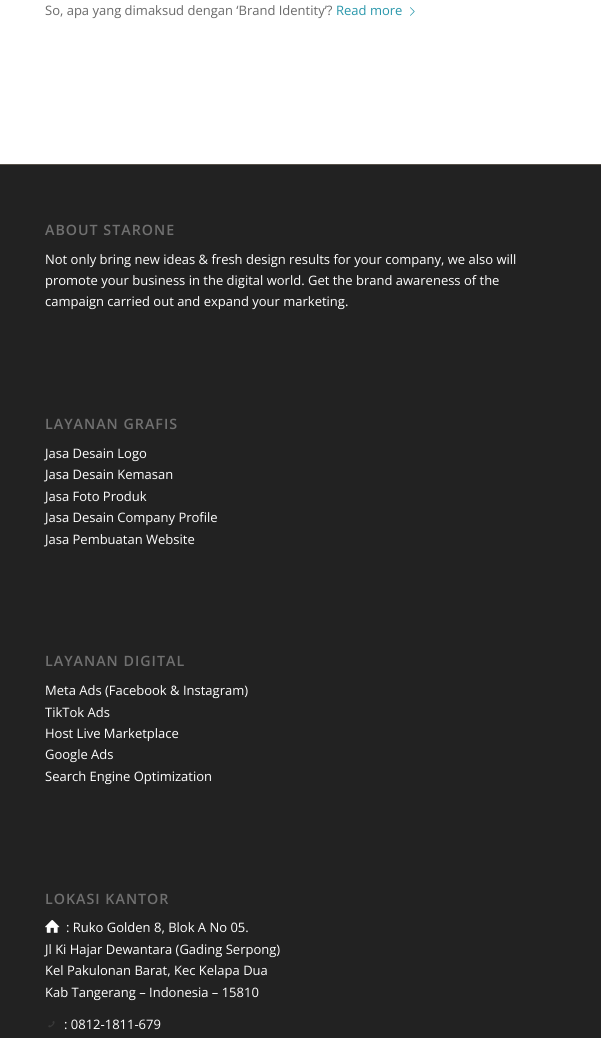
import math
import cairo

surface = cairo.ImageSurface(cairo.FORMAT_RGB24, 601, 1038)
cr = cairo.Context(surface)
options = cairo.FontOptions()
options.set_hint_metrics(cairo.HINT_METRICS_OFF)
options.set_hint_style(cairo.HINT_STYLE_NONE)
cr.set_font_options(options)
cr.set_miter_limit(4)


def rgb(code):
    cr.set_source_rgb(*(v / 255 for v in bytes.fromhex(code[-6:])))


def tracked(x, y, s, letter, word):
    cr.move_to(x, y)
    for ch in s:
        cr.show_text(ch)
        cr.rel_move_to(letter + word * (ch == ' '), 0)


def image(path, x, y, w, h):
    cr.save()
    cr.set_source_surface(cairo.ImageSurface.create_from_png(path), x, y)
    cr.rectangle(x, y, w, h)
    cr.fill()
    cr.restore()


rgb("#ffffff")
cr.paint()
image("img/1.png", 410, 7, 5, 9)
rgb("#222222")
cr.rectangle(0, 165, 601, 873)
cr.fill()
rgb("#575149")
cr.rectangle(0, 164, 601, 1)
cr.fill()
image("img/2.png", 45, 920, 15, 13)
image("img/3.png", 48, 1021, 7, 7)
cr.select_font_face("Open Sans")
cr.set_font_size(13)
rgb("#6a6a6a")
cr.move_to(45, 15)
cr.show_text("So, apa yang dimaksud dengan ‘Brand Identity’?")
rgb("#2997ab")
cr.move_to(336, 15)
cr.show_text("Read more")
cr.select_font_face("Open Sans SemiBold")
cr.set_font_size(14.25)
rgb("#707070")
tracked(45, 235, "ABOUT STARONE", 1, 0)
cr.select_font_face("Open Sans")
cr.set_font_size(13)
rgb("#ffffff")
for x, y, s in [
    (45, 264, "Not only bring new ideas & fresh design results for your company, we also will"),
    (45, 285, "promote your business in the digital world. Get the brand awareness of the"),
    (45, 306, "campaign carried out and expand your marketing."),
]:
    cr.move_to(x, y)
    cr.show_text(s)
cr.select_font_face("Open Sans SemiBold")
cr.set_font_size(14.25)
rgb("#707070")
tracked(45, 429, "LAYANAN GRAFIS", 1, 0)
cr.select_font_face("Open Sans")
cr.set_font_size(13)
rgb("#ffffff")
for x, y, s in [
    (45, 458, "Jasa Desain Logo"),
    (45, 479, "Jasa Desain Kemasan"),
    (45, 501, "Jasa Foto Produk"),
    (45, 522, "Jasa Desain Company Profile"),
    (45, 544, "Jasa Pembuatan Website"),
]:
    cr.move_to(x, y)
    cr.show_text(s)
cr.select_font_face("Open Sans SemiBold")
cr.set_font_size(14.25)
rgb("#707070")
tracked(45, 666, "LAYANAN DIGITAL", 1, 0)
cr.select_font_face("Open Sans")
cr.set_font_size(13)
rgb("#ffffff")
for x, y, s in [
    (45, 695, "Meta Ads (Facebook & Instagram)"),
    (45, 717, "TikTok Ads"),
    (45, 738, "Host Live Marketplace"),
    (45, 759, "Google Ads"),
    (45, 781, "Search Engine Optimization"),
]:
    cr.move_to(x, y)
    cr.show_text(s)
cr.select_font_face("Open Sans SemiBold")
cr.set_font_size(14.25)
rgb("#707070")
tracked(45, 904, "LOKASI KANTOR", 1, 0)
cr.select_font_face("Open Sans")
cr.set_font_size(13)
rgb("#ffffff")
for x, y, s in [
    (66, 932, ": Ruko Golden 8, Blok A No 05."),
    (45, 954, "Jl Ki Hajar Dewantara (Gading Serpong)"),
    (45, 975, "Kel Pakulonan Barat, Kec Kelapa Dua"),
    (45, 997, "Kab Tangerang – Indonesia – 15810"),
    (64, 1029, ": 0812-1811-679"),
]:
    cr.move_to(x, y)
    cr.show_text(s)
surface.write_to_png("page.png")
